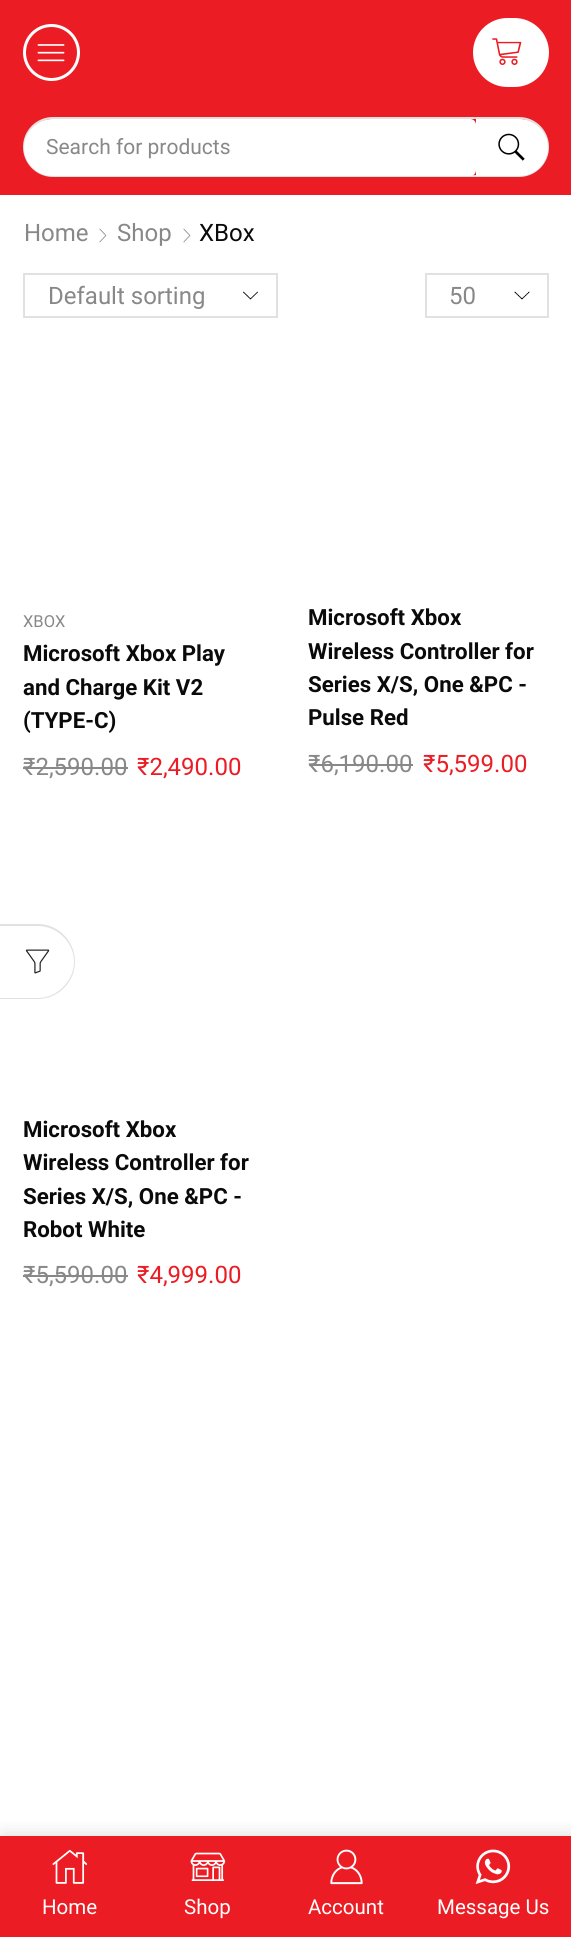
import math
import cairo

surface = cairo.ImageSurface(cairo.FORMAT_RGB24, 571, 1937)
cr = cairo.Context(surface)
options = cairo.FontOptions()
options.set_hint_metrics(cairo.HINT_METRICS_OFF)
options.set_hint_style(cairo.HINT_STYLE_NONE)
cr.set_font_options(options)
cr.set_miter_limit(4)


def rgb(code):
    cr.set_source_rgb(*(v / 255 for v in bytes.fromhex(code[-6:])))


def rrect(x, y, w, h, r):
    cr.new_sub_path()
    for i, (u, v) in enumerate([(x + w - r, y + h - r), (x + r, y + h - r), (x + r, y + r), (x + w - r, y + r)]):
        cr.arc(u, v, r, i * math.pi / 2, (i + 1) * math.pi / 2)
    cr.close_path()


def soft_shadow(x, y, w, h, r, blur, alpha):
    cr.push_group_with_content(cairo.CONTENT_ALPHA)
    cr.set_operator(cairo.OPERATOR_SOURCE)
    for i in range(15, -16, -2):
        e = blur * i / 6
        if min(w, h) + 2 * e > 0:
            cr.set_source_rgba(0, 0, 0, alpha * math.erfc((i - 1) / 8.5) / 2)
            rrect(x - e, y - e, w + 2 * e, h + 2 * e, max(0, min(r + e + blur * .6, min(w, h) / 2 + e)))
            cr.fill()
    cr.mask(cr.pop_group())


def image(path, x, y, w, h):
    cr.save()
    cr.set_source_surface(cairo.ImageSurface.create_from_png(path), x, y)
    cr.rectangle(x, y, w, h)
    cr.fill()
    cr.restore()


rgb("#ffffff")
cr.paint()
rgb("#eb1c24")
cr.rectangle(0, 0, 571, 195)
cr.fill()
cr.arc(51.5, 52.5, 27, 0, 2 * math.pi)
rgb("#ffffff")
cr.set_line_width(3)
cr.stroke()
image("img/1.png", 37, 44, 28, 18)
rrect(474.5, 19.5, 73, 66, 33)
cr.fill_preserve()
cr.stroke()
image("img/2.png", 492, 38, 30, 27)
rrect(24, 118, 524, 58, 29)
rgb("#e1e1e1")
cr.set_line_width(2)
cr.stroke()
rgb("#ffffff")
cr.new_path()
cr.move_to(52.5, 119)
cr.line_to(470, 119)
cr.curve_to(473.5, 119, 476, 121.5, 476, 125)
cr.line_to(476, 170)
cr.curve_to(476, 173.5, 473.5, 176, 470, 176)
cr.line_to(52.5, 176)
cr.curve_to(37, 176, 24, 163, 24, 147.5)
cr.curve_to(24, 132, 37, 119, 52.5, 119)
cr.close_path()
cr.fill()
cr.new_path()
cr.move_to(476, 119)
cr.line_to(519.5, 119)
cr.curve_to(535, 119, 548, 132, 548, 147.5)
cr.curve_to(548, 163, 535, 176, 519.5, 176)
cr.line_to(476, 176)
cr.close_path()
cr.fill()
image("img/3.png", 498, 133, 27, 28)
image("img/4.png", 99, 228, 8, 15)
image("img/4.png", 183, 228, 8, 15)
image("img/5.png", 243, 291, 15, 9)
cr.rectangle(24, 274, 253, 43)
rgb("#e1e1e1")
cr.stroke()
image("img/6.png", 514, 291, 16, 9)
cr.rectangle(426, 274, 122, 43)
cr.stroke()
for x, y, w, h, color in [
    (23, 767, 105, 2, "#888888"),
    (309, 764, 104, 2, "#888888"),
    (23, 1275, 105, 2, "#888888"),
]:
    rgb(color)
    cr.rectangle(x, y, w, h)
    cr.fill()
rgb("#000000")
soft_shadow(3, 1836, 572, 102, 0, 9, 0.15)
rgb("#eb1c24")
cr.rectangle(0, 1836, 571, 101)
cr.fill()
image("img/7.png", 52, 1849, 36, 35)
image("img/8.png", 190, 1852, 36, 29)
image("img/9.png", 330, 1849, 33, 36)
image("img/10.png", 475, 1849, 36, 35)
rgb("#e1e1e1")
cr.set_fill_rule(cairo.FILL_RULE_EVEN_ODD)
cr.new_path()
cr.move_to(0, 924)
cr.line_to(38, 924)
cr.curve_to(58, 924, 75, 941, 75, 962)
cr.curve_to(75, 982, 58, 999, 38, 999)
cr.line_to(0, 999)
cr.close_path()
cr.move_to(0, 926)
cr.line_to(38, 926)
cr.curve_to(57, 926, 74, 942, 74, 962)
cr.curve_to(74, 981, 57, 998, 38, 998)
cr.line_to(0, 998)
cr.close_path()
cr.fill()
image("img/11.png", 25, 949, 25, 25)
cr.select_font_face("Roboto")
cr.set_font_size(21)
rgb("#888888")
cr.move_to(46, 154)
cr.show_text("Search for products")
cr.set_font_size(24)
cr.move_to(24, 241)
cr.show_text("Home")
cr.move_to(117, 241)
cr.show_text("Shop")
rgb("#0a0a0a")
cr.move_to(199, 241)
cr.show_text("XBox")
rgb("#888888")
cr.move_to(48, 304)
cr.show_text("Default sorting")
cr.move_to(449, 304)
cr.show_text("50")
cr.set_font_size(16.5)
cr.move_to(23, 627)
cr.show_text("XBOX")
cr.select_font_face("Roboto", cairo.FONT_SLANT_NORMAL, cairo.FONT_WEIGHT_BOLD)
cr.set_font_size(22.25)
rgb("#0a0a0a")
for x, y, s in [
    (23, 661, "Microsoft Xbox Play"),
    (23, 695, "and Charge Kit V2"),
    (23, 728, "(TYPE-C)"),
]:
    cr.move_to(x, y)
    cr.show_text(s)
cr.select_font_face("Roboto")
cr.set_font_size(24)
rgb("#888888")
cr.move_to(23, 775)
cr.show_text("₹2,590.00")
rgb("#eb1c24")
cr.move_to(137, 775)
cr.show_text("₹2,490.00")
cr.select_font_face("Roboto", cairo.FONT_SLANT_NORMAL, cairo.FONT_WEIGHT_BOLD)
cr.set_font_size(22.25)
rgb("#0a0a0a")
for x, y, s in [
    (308, 625, "Microsoft Xbox"),
    (308, 659, "Wireless Controller for"),
    (308, 692, "Series X/S, One &PC -"),
    (308, 725, "Pulse Red"),
]:
    cr.move_to(x, y)
    cr.show_text(s)
cr.select_font_face("Roboto")
cr.set_font_size(24)
rgb("#888888")
cr.move_to(308, 772)
cr.show_text("₹6,190.00")
rgb("#eb1c24")
cr.move_to(423, 772)
cr.show_text("₹5,599.00")
cr.select_font_face("Roboto", cairo.FONT_SLANT_NORMAL, cairo.FONT_WEIGHT_BOLD)
cr.set_font_size(22.25)
rgb("#0a0a0a")
for x, y, s in [
    (23, 1137, "Microsoft Xbox"),
    (23, 1170, "Wireless Controller for"),
    (23, 1204, "Series X/S, One &PC -"),
    (23, 1237, "Robot White"),
]:
    cr.move_to(x, y)
    cr.show_text(s)
cr.select_font_face("Roboto")
cr.set_font_size(24)
rgb("#888888")
cr.move_to(23, 1283)
cr.show_text("₹5,590.00")
rgb("#eb1c24")
cr.move_to(137, 1283)
cr.show_text("₹4,999.00")
cr.set_font_size(20.5)
rgb("#ffffff")
for x, y, s in [
    (42, 1914, "Home"),
    (184, 1914, "Shop"),
    (308, 1914, "Account"),
    (437, 1914, "Message Us"),
]:
    cr.move_to(x, y)
    cr.show_text(s)
surface.write_to_png("page.png")
